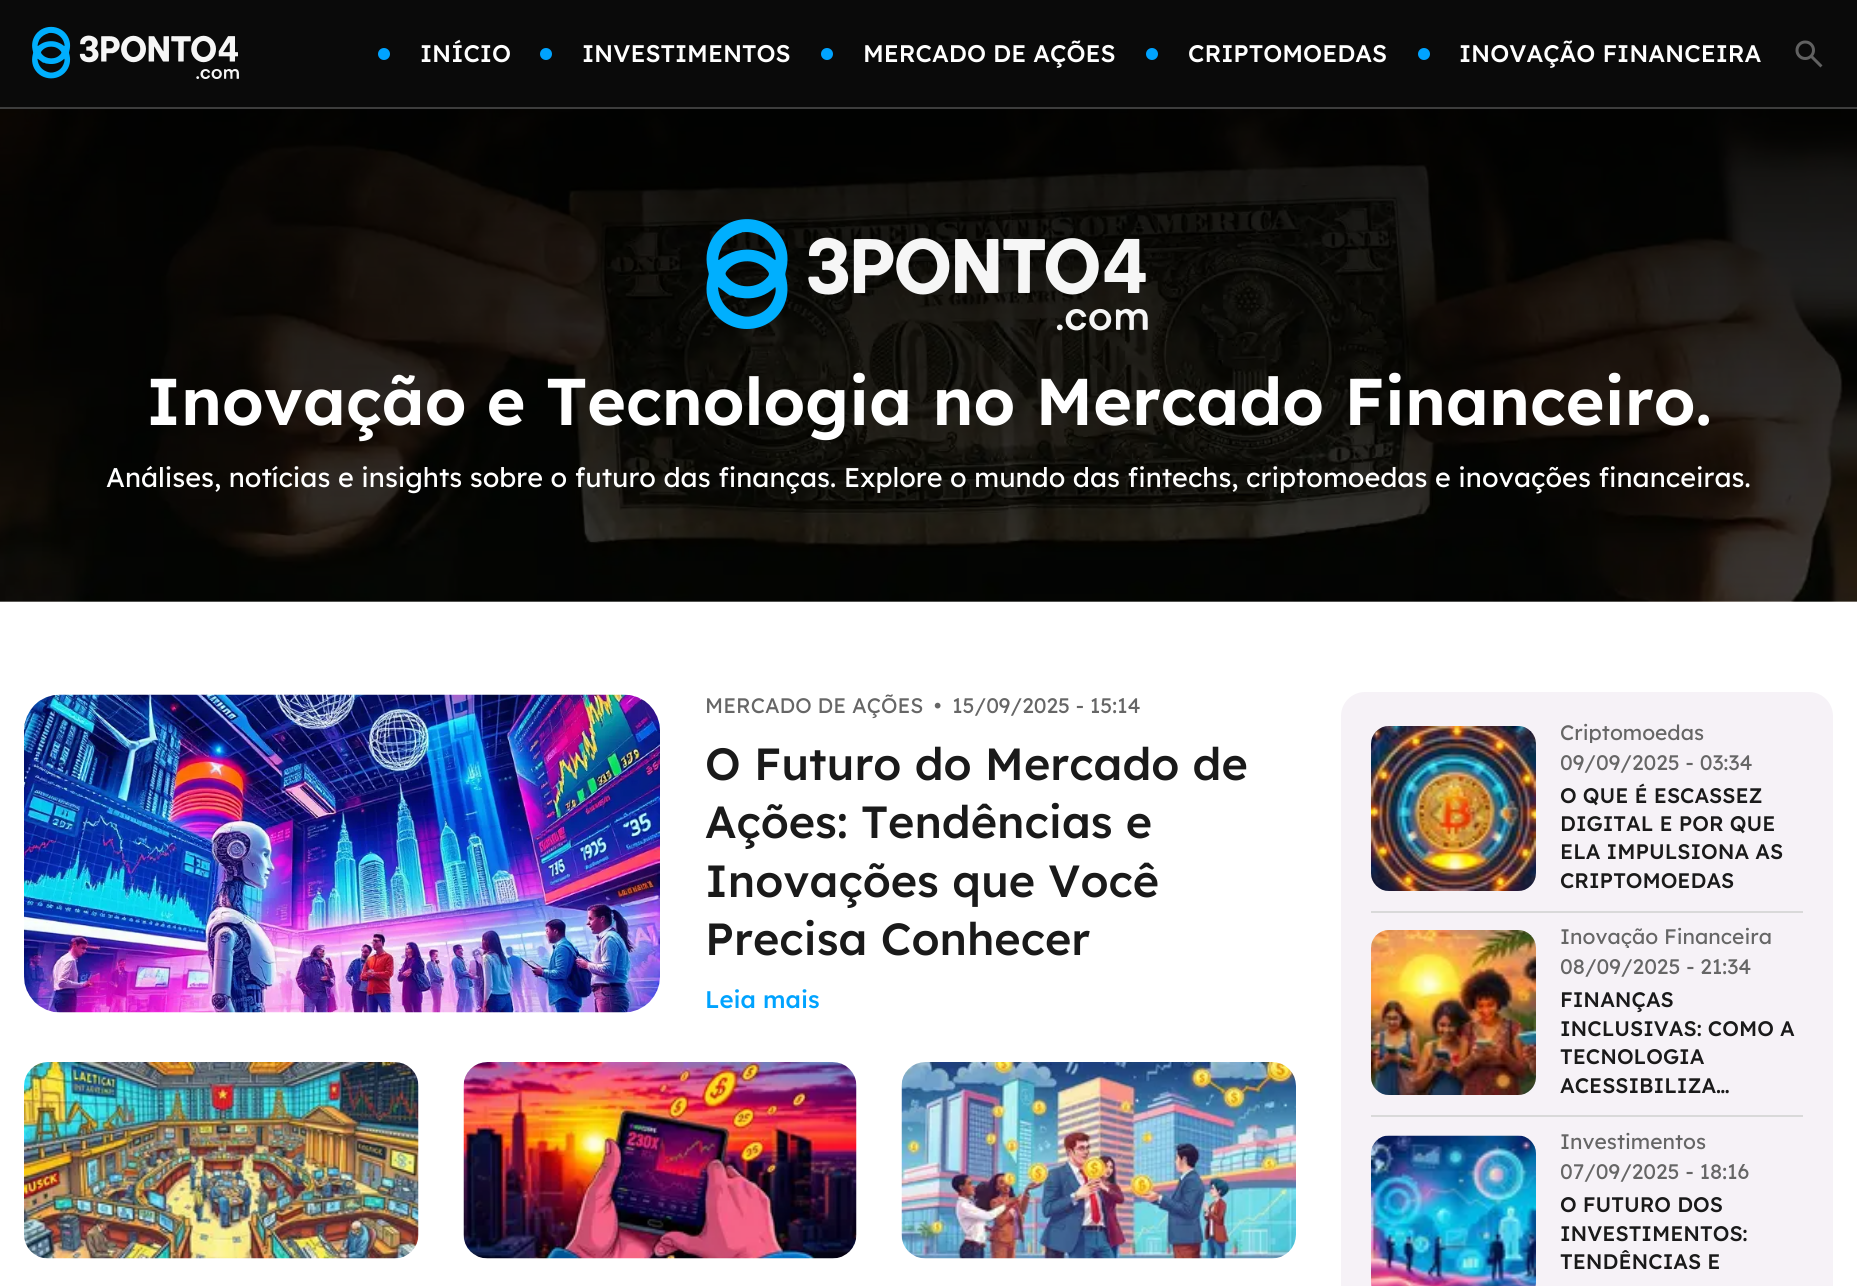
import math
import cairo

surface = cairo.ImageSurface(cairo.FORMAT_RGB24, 1857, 1286)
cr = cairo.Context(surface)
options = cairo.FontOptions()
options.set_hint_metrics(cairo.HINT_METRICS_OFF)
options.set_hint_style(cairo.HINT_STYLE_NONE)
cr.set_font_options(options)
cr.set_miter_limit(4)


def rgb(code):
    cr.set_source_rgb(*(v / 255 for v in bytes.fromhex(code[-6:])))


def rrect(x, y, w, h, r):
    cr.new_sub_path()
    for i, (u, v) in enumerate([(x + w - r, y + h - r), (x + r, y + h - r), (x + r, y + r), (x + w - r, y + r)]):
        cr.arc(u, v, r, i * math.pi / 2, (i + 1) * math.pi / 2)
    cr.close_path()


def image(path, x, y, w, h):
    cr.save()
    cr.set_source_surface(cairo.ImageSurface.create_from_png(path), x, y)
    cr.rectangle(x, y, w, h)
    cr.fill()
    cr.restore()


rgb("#ffffff")
cr.paint()
rgb("#0a0a0a")
cr.rectangle(0, 0, 1857, 107)
cr.fill()
rgb("#3d3d3d")
cr.rectangle(0, 107, 1857, 2)
cr.fill()
image("img/1.png", 32, 26, 207, 53)
rgb("#00a3ff")
cr.arc(384, 54, 6, 0, 2 * math.pi)
cr.fill()
cr.arc(546, 54, 6, 0, 2 * math.pi)
cr.fill()
cr.arc(827, 54, 6, 0, 2 * math.pi)
cr.fill()
cr.arc(1152, 54, 6, 0, 2 * math.pi)
cr.fill()
cr.arc(1424, 54, 6, 0, 2 * math.pi)
cr.fill()
image("img/2.png", 1795, 40, 28, 28)
image("img/3.png", 0, 109, 1857, 493)
image("img/4.png", 706, 219, 442, 112)
image("img/5.png", 24, 694, 636, 319)
image("img/6.png", 24, 1062, 395, 197)
image("img/7.png", 463, 1062, 394, 197)
image("img/8.png", 901, 1062, 395, 197)
rgb("#f6f2f7")
rrect(1341, 692, 492, 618, 24)
cr.fill()
image("img/9.png", 1371, 726, 165, 165)
rgb("#d9d9d9")
cr.rectangle(1371, 911, 432, 2)
cr.fill()
image("img/10.png", 1371, 930, 165, 165)
cr.rectangle(1371, 1115, 432, 2)
cr.fill()
image("img/11.png", 1371, 1135, 165, 151)
cr.select_font_face("Lexend Medium")
cr.set_font_size(24)
rgb("#ffffff")
for x, y, s in [
    (420, 62, "INÍCIO"),
    (582, 62, "INVESTIMENTOS"),
    (863, 62, "MERCADO DE AÇÕES"),
    (1188, 62, "CRIPTOMOEDAS"),
    (1459, 62, "INOVAÇÃO FINANCEIRA"),
]:
    cr.move_to(x, y)
    cr.show_text(s)
cr.select_font_face("Lexend SemiBold")
cr.set_font_size(66)
cr.move_to(146, 425)
cr.show_text("Inovação e Tecnologia no Mercado Financeiro.")
cr.select_font_face("Lexend")
cr.set_font_size(27)
cr.move_to(106, 487)
cr.show_text("Análises, notícias e insights sobre o futuro das finanças. Explore o mundo das fintechs, criptomoedas e inovações financeiras.")
cr.set_font_size(21)
rgb("#666666")
for x, y, s in [
    (705, 713, "MERCADO DE AÇÕES"),
    (934, 713, "•"),
    (952, 713, "15/09/2025 - 15:14"),
]:
    cr.move_to(x, y)
    cr.show_text(s)
cr.select_font_face("Lexend Medium")
cr.set_font_size(45)
rgb("#1a1a1a")
for x, y, s in [
    (705, 780, "O Futuro do Mercado de"),
    (705, 838, "Ações: Tendências e"),
    (705, 897, "Inovações que Você"),
    (705, 955, "Precisa Conhecer"),
]:
    cr.move_to(x, y)
    cr.show_text(s)
cr.set_font_size(24)
rgb("#00a3ff")
cr.move_to(705, 1008)
cr.show_text("Leia mais")
cr.save()
cr.rectangle(1560, 722, 243, 21)
cr.clip()
cr.select_font_face("Lexend")
cr.set_font_size(21)
rgb("#666666")
cr.move_to(1560, 740)
cr.show_text("Criptomoedas")
cr.restore()
cr.select_font_face("Lexend")
cr.set_font_size(21)
rgb("#666666")
cr.move_to(1560, 770)
cr.show_text("09/09/2025 - 03:34")
cr.select_font_face("Lexend Medium")
rgb("#1a1a1a")
for x, y, s in [
    (1560, 803, "O QUE É ESCASSEZ"),
    (1560, 831, "DIGITAL E POR QUE"),
    (1560, 859, "ELA IMPULSIONA AS"),
    (1560, 888, "CRIPTOMOEDAS"),
]:
    cr.move_to(x, y)
    cr.show_text(s)
cr.save()
cr.rectangle(1560, 927, 243, 21)
cr.clip()
cr.select_font_face("Lexend")
rgb("#666666")
cr.move_to(1560, 944)
cr.show_text("Inovação Financeira")
cr.restore()
cr.select_font_face("Lexend")
rgb("#666666")
cr.move_to(1560, 974)
cr.show_text("08/09/2025 - 21:34")
cr.select_font_face("Lexend Medium")
rgb("#1a1a1a")
for x, y, s in [
    (1560, 1007, "FINANÇAS"),
    (1560, 1036, "INCLUSIVAS: COMO A"),
    (1560, 1064, "TECNOLOGIA"),
    (1560, 1093, "ACESSIBILIZA…"),
]:
    cr.move_to(x, y)
    cr.show_text(s)
cr.select_font_face("Lexend")
rgb("#666666")
cr.move_to(1560, 1149)
cr.show_text("Investimentos")
cr.move_to(1560, 1179)
cr.show_text("07/09/2025 - 18:16")
cr.select_font_face("Lexend Medium")
rgb("#1a1a1a")
for x, y, s in [
    (1560, 1212, "O FUTURO DOS"),
    (1560, 1241, "INVESTIMENTOS:"),
    (1560, 1269, "TENDÊNCIAS E"),
]:
    cr.move_to(x, y)
    cr.show_text(s)
surface.write_to_png("page.png")
